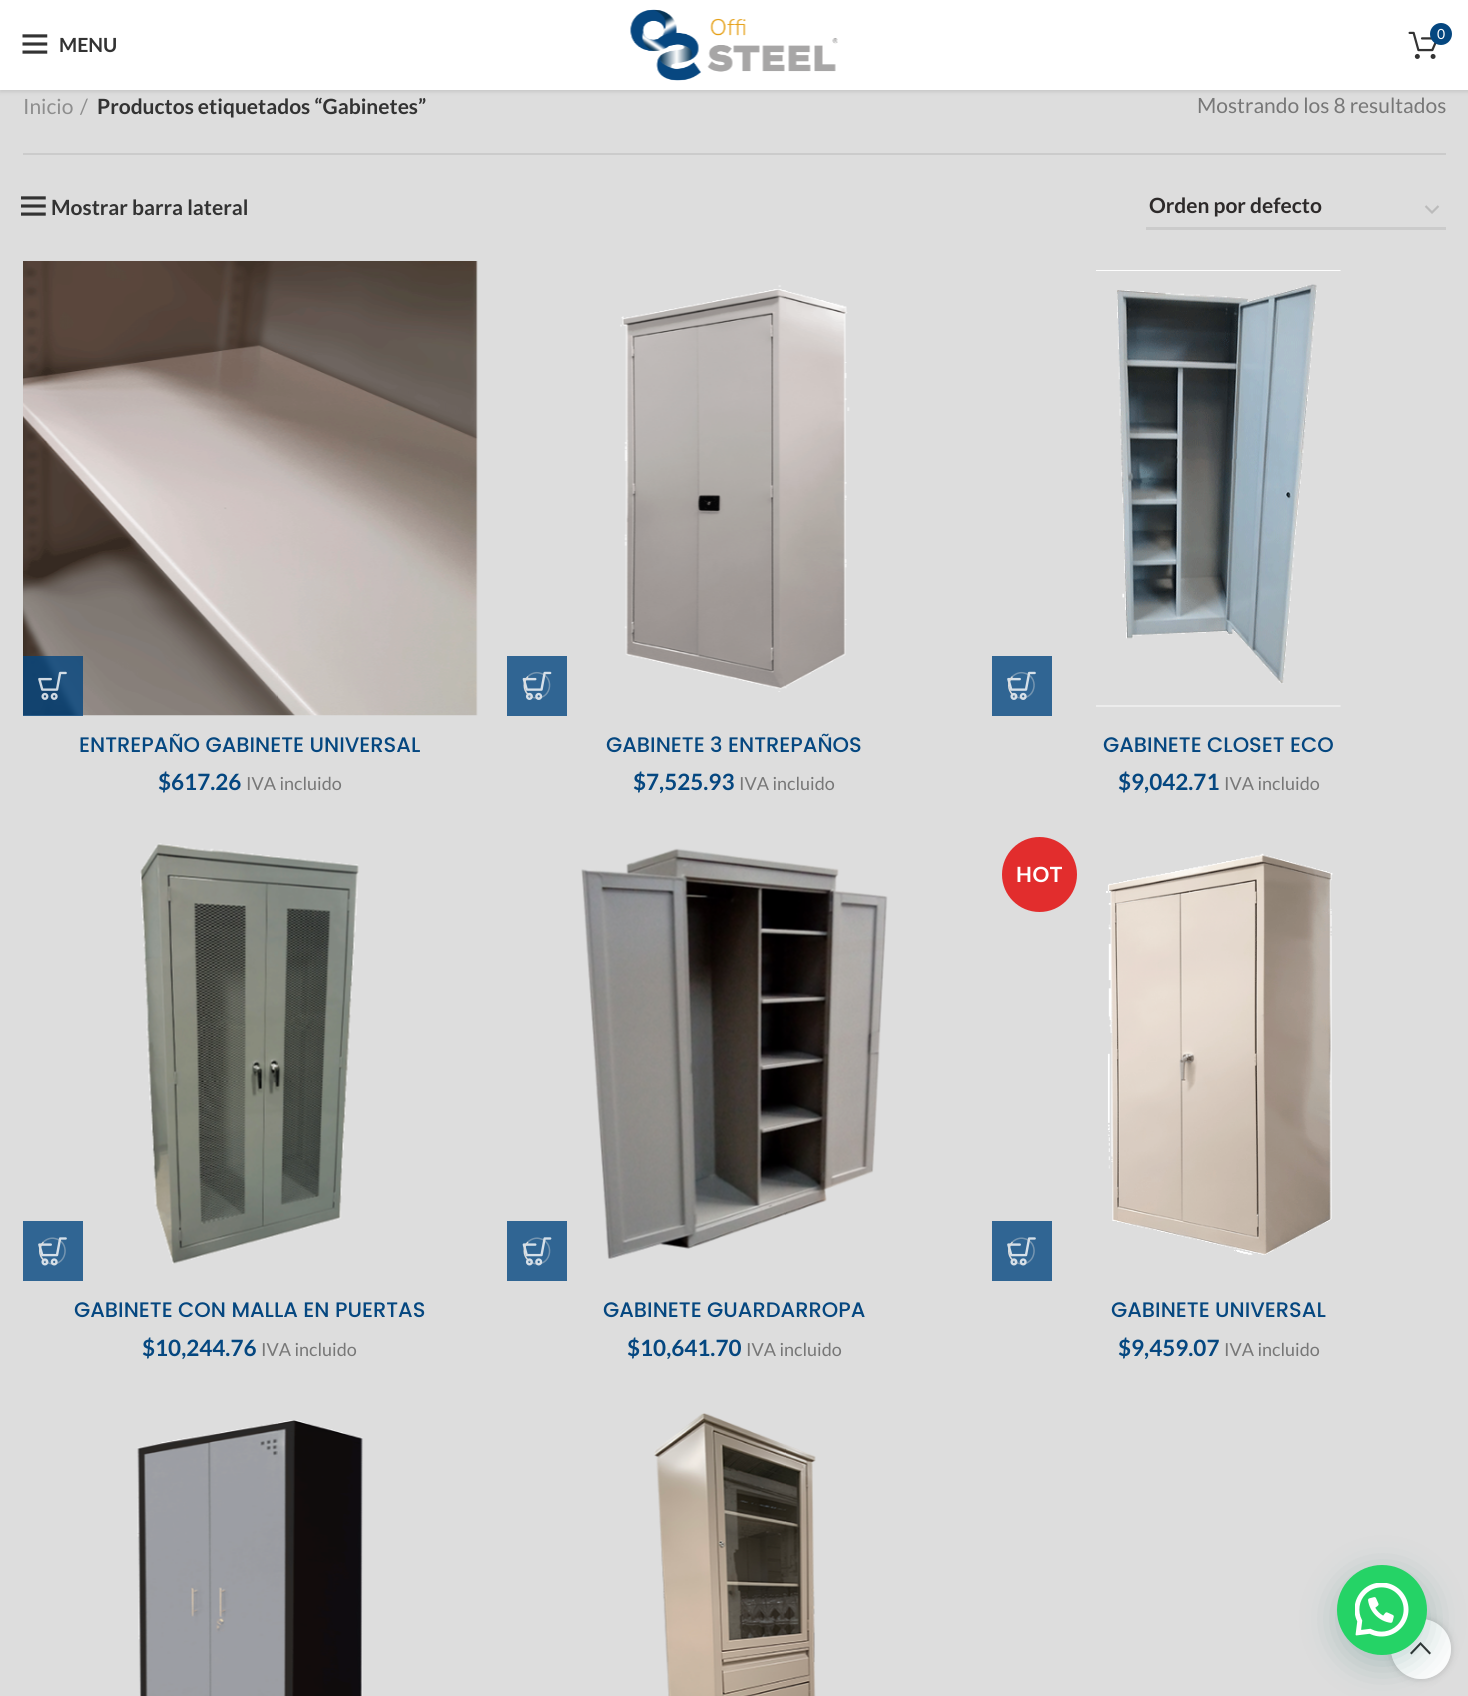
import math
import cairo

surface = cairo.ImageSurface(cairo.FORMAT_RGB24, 1468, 1696)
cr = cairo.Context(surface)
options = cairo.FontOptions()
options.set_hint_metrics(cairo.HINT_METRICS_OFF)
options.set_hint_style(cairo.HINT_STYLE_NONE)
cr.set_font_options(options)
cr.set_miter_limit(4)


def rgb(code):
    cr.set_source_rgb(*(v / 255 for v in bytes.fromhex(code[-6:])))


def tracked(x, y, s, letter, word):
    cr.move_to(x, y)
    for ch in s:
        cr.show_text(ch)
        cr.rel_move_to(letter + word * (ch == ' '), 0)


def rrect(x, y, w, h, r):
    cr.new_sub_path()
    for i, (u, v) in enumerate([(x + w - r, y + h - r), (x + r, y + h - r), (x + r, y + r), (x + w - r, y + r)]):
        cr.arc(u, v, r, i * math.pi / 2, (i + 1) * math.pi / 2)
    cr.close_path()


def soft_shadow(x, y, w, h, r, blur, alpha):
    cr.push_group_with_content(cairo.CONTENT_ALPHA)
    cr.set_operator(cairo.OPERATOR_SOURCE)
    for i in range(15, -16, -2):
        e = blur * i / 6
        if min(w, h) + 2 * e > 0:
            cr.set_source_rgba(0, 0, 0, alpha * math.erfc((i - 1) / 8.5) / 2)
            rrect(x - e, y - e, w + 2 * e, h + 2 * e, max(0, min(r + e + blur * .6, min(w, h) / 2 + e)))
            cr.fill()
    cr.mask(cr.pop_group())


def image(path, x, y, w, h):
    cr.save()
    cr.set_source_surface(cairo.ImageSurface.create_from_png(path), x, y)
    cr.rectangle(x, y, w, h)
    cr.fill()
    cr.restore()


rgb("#dddddd")
cr.paint()
rgb("#000000")
soft_shadow(0, 2, 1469, 90, 0, 2, 0.1)
rgb("#ffffff")
cr.rectangle(0, 0, 1468, 90)
cr.fill()
image("img/1.png", 630, 9, 208, 72)
image("img/2.png", 1408, 31, 29, 28)
rgb("#054780")
cr.arc(1441, 34, 11, 0, 2 * math.pi)
cr.fill()
image("img/3.png", 22, 34, 26, 20)
rgb("#cbcbcb")
cr.rectangle(23, 153, 1423, 2)
cr.fill()
image("img/4.png", 21, 196, 25, 20)
cr.new_path()
cr.move_to(1425.5, 206)
cr.line_to(1432, 212.5)
cr.line_to(1438.5, 206)
rgb("#bbbbbb")
cr.set_line_width(2.2)
cr.stroke()
rgb("#cbcbcb")
cr.rectangle(1146, 227, 300, 3)
cr.fill()
image("img/5.png", 23, 261, 455, 455)
cr.set_source_rgba(0.02, 0.278, 0.502, 0.8)
cr.rectangle(23, 656, 60, 60)
cr.fill()
image("img/6.png", 38, 671, 29, 29)
rgb("#306593")
cr.rectangle(507, 656, 60, 60)
cr.fill()
image("img/7.png", 522, 671, 30, 29)
cr.new_path()
cr.move_to(528, 676.5)
cr.curve_to(531, 673.5, 535.5, 672, 539.5, 673)
cr.curve_to(554.5, 676, 552, 698, 537, 698)
cr.curve_to(533.5, 698, 530.5, 697, 528, 694.5)
cr.set_source_rgba(0.867, 0.867, 0.867, 0.4)
cr.set_line_width(1.5)
cr.stroke()
cr.new_path()
cr.move_to(528, 694.5)
cr.curve_to(523, 689.5, 523, 681.5, 528, 676.5)
rgb("#dddddd")
cr.stroke()
image("img/8.png", 620, 285, 230, 407)
rgb("#306593")
cr.rectangle(992, 656, 60, 60)
cr.fill()
image("img/9.png", 1007, 671, 29, 29)
cr.new_path()
cr.move_to(1012.5, 676.5)
cr.curve_to(1015.5, 673.5, 1020, 672, 1024, 673)
cr.curve_to(1039, 676, 1036.5, 698, 1021.5, 698)
cr.curve_to(1018, 698, 1015, 697, 1012.5, 694.5)
cr.set_source_rgba(0.867, 0.867, 0.867, 0.4)
cr.stroke()
cr.new_path()
cr.move_to(1012.5, 694.5)
cr.curve_to(1007.5, 689.5, 1007.5, 681.5, 1012.5, 676.5)
rgb("#dddddd")
cr.stroke()
image("img/10.png", 1096, 270, 245, 437)
rgb("#306593")
cr.rectangle(23, 1221, 60, 60)
cr.fill()
image("img/11.png", 38, 1237, 29, 29)
cr.new_path()
cr.move_to(43.5, 1242)
cr.curve_to(46.5, 1239, 51, 1237.5, 55, 1238.5)
cr.curve_to(70, 1241.5, 67.5, 1264, 52.5, 1264)
cr.curve_to(49, 1263.5, 46, 1262.5, 43.5, 1260)
cr.set_source_rgba(0.867, 0.867, 0.867, 0.4)
cr.stroke()
cr.new_path()
cr.move_to(43.5, 1260)
cr.curve_to(38.5, 1255, 38.5, 1247, 43.5, 1242)
rgb("#dddddd")
cr.stroke()
image("img/12.png", 140, 843, 219, 421)
rgb("#306593")
cr.rectangle(507, 1221, 60, 60)
cr.fill()
image("img/13.png", 522, 1237, 30, 29)
cr.new_path()
cr.move_to(528, 1242)
cr.curve_to(531, 1239, 535.5, 1237.5, 539.5, 1238.5)
cr.curve_to(554.5, 1241.5, 552, 1264, 537, 1264)
cr.curve_to(533.5, 1263.5, 530.5, 1262.5, 528, 1260)
cr.set_source_rgba(0.867, 0.867, 0.867, 0.4)
cr.stroke()
cr.new_path()
cr.move_to(528, 1260)
cr.curve_to(523, 1255, 523, 1247, 528, 1242)
rgb("#dddddd")
cr.stroke()
image("img/14.png", 581, 848, 307, 411)
rgb("#e22d2d")
cr.arc(1039.5, 874.5, 37.5, 0, 2 * math.pi)
cr.fill()
image("img/15.png", 1106, 853, 227, 402)
rgb("#306593")
cr.rectangle(992, 1221, 60, 60)
cr.fill()
image("img/11.png", 1007, 1237, 29, 29)
cr.new_path()
cr.move_to(1012.5, 1242)
cr.curve_to(1015.5, 1239, 1020, 1237.5, 1024, 1238.5)
cr.curve_to(1039, 1241.5, 1036.5, 1264, 1021.5, 1264)
cr.curve_to(1018, 1263.5, 1015, 1262.5, 1012.5, 1260)
cr.set_source_rgba(0.867, 0.867, 0.867, 0.4)
cr.stroke()
cr.new_path()
cr.move_to(1012.5, 1260)
cr.curve_to(1007.5, 1255, 1007.5, 1247, 1012.5, 1242)
rgb("#dddddd")
cr.stroke()
image("img/16.png", 137, 1420, 226, 276)
image("img/17.png", 654, 1413, 162, 283)
cr.save()
cr.set_fill_rule(cairo.FILL_RULE_EVEN_ODD)
cr.new_path()
cr.move_to(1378, 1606)
cr.line_to(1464, 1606)
cr.line_to(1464, 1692)
cr.line_to(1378, 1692)
cr.close_path()
cr.move_to(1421, 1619)
cr.curve_to(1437.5, 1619, 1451, 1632.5, 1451, 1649)
cr.curve_to(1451, 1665.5, 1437.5, 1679, 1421, 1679)
cr.curve_to(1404.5, 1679, 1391, 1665.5, 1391, 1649)
cr.curve_to(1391, 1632.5, 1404.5, 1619, 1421, 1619)
cr.close_path()
cr.clip()
rgb("#000000")
soft_shadow(1391, 1619, 60, 60, 30, 4, 0.17)
cr.restore()
cr.set_source_rgba(1, 1, 1, 0.9)
cr.arc(1421, 1649, 30, 0, 2 * math.pi)
cr.fill()
rgb("#333333")
cr.new_path()
cr.move_to(1420.5, 1642)
cr.line_to(1431, 1653)
cr.line_to(1429.5, 1654.5)
cr.line_to(1420.5, 1645)
cr.line_to(1411.5, 1654.5)
cr.line_to(1410, 1653)
cr.close_path()
cr.fill()
rgb("#075e54")
soft_shadow(1338, 1574, 90, 90, 45, 18, 0.24)
rgb("#25d366")
cr.arc(1382, 1610, 45, 0, 2 * math.pi)
cr.fill()
image("img/18.png", 1355, 1583, 54, 54)
cr.select_font_face("Lato")
cr.set_font_size(14)
rgb("#ffffff")
cr.move_to(1437, 39)
cr.show_text("0")
cr.select_font_face("Lato", cairo.FONT_SLANT_NORMAL, cairo.FONT_WEIGHT_BOLD)
cr.set_font_size(19.5)
rgb("#333333")
cr.move_to(59, 52)
cr.show_text("MENU")
cr.select_font_face("Lato")
cr.set_font_size(21)
rgb("#8e8e8e")
cr.move_to(23, 114)
cr.show_text("Inicio")
cr.move_to(80, 114)
cr.show_text("/")
cr.select_font_face("Lato", cairo.FONT_SLANT_NORMAL, cairo.FONT_WEIGHT_BOLD)
rgb("#333333")
cr.move_to(97, 114)
cr.show_text("Productos etiquetados “Gabinetes”")
cr.select_font_face("Lato")
rgb("#777777")
cr.move_to(1197, 113)
cr.show_text("Mostrando los 8 resultados")
cr.select_font_face("Lato", cairo.FONT_SLANT_NORMAL, cairo.FONT_WEIGHT_BOLD)
rgb("#333333")
cr.move_to(51, 215)
cr.show_text("Mostrar barra lateral")
rgb("#2d2a2a")
cr.move_to(1149, 213)
cr.show_text("Orden por defecto")
cr.select_font_face("Poppins Medium")
rgb("#054780")
cr.move_to(79, 752)
cr.show_text("ENTREPAÑO GABINETE UNIVERSAL")
cr.select_font_face("Lato", cairo.FONT_SLANT_NORMAL, cairo.FONT_WEIGHT_BOLD)
cr.set_font_size(22.5)
cr.move_to(158, 790)
cr.show_text("$617.26")
cr.select_font_face("Lato")
cr.set_font_size(18)
rgb("#777777")
cr.move_to(246, 790)
cr.show_text("IVA incluido")
cr.select_font_face("Poppins Medium")
cr.set_font_size(21)
rgb("#054780")
cr.move_to(606, 752)
cr.show_text("GABINETE 3 ENTREPAÑOS")
cr.select_font_face("Lato", cairo.FONT_SLANT_NORMAL, cairo.FONT_WEIGHT_BOLD)
cr.set_font_size(22.5)
cr.move_to(633, 790)
cr.show_text("$7,525.93")
cr.select_font_face("Lato")
cr.set_font_size(18)
rgb("#777777")
cr.move_to(739, 790)
cr.show_text("IVA incluido")
cr.select_font_face("Poppins Medium")
cr.set_font_size(21)
rgb("#054780")
cr.move_to(1103, 752)
cr.show_text("GABINETE CLOSET ECO")
cr.select_font_face("Lato", cairo.FONT_SLANT_NORMAL, cairo.FONT_WEIGHT_BOLD)
cr.set_font_size(22.5)
cr.move_to(1118, 790)
cr.show_text("$9,042.71")
cr.select_font_face("Lato")
cr.set_font_size(18)
rgb("#777777")
cr.move_to(1224, 790)
cr.show_text("IVA incluido")
cr.select_font_face("Poppins Medium")
cr.set_font_size(21)
rgb("#054780")
cr.move_to(74, 1317)
cr.show_text("GABINETE CON MALLA EN PUERTAS")
cr.select_font_face("Lato", cairo.FONT_SLANT_NORMAL, cairo.FONT_WEIGHT_BOLD)
cr.set_font_size(22.5)
cr.move_to(142, 1356)
cr.show_text("$10,244.76")
cr.select_font_face("Lato")
cr.set_font_size(18)
rgb("#777777")
cr.move_to(261, 1356)
cr.show_text("IVA incluido")
cr.select_font_face("Poppins Medium")
cr.set_font_size(21)
rgb("#054780")
cr.move_to(603, 1317)
cr.show_text("GABINETE GUARDARROPA")
cr.select_font_face("Lato", cairo.FONT_SLANT_NORMAL, cairo.FONT_WEIGHT_BOLD)
cr.set_font_size(22.5)
cr.move_to(627, 1356)
cr.show_text("$10,641.70")
cr.select_font_face("Lato")
cr.set_font_size(18)
rgb("#777777")
cr.move_to(746, 1356)
cr.show_text("IVA incluido")
cr.select_font_face("Lato", cairo.FONT_SLANT_NORMAL, cairo.FONT_WEIGHT_BOLD)
cr.set_font_size(21)
rgb("#ffffff")
tracked(1016, 882, "HOT", 0.5, 0)
cr.select_font_face("Poppins Medium")
rgb("#054780")
cr.move_to(1111, 1317)
cr.show_text("GABINETE UNIVERSAL")
cr.select_font_face("Lato", cairo.FONT_SLANT_NORMAL, cairo.FONT_WEIGHT_BOLD)
cr.set_font_size(22.5)
cr.move_to(1118, 1356)
cr.show_text("$9,459.07")
cr.select_font_face("Lato")
cr.set_font_size(18)
rgb("#777777")
cr.move_to(1224, 1356)
cr.show_text("IVA incluido")
surface.write_to_png("page.png")
